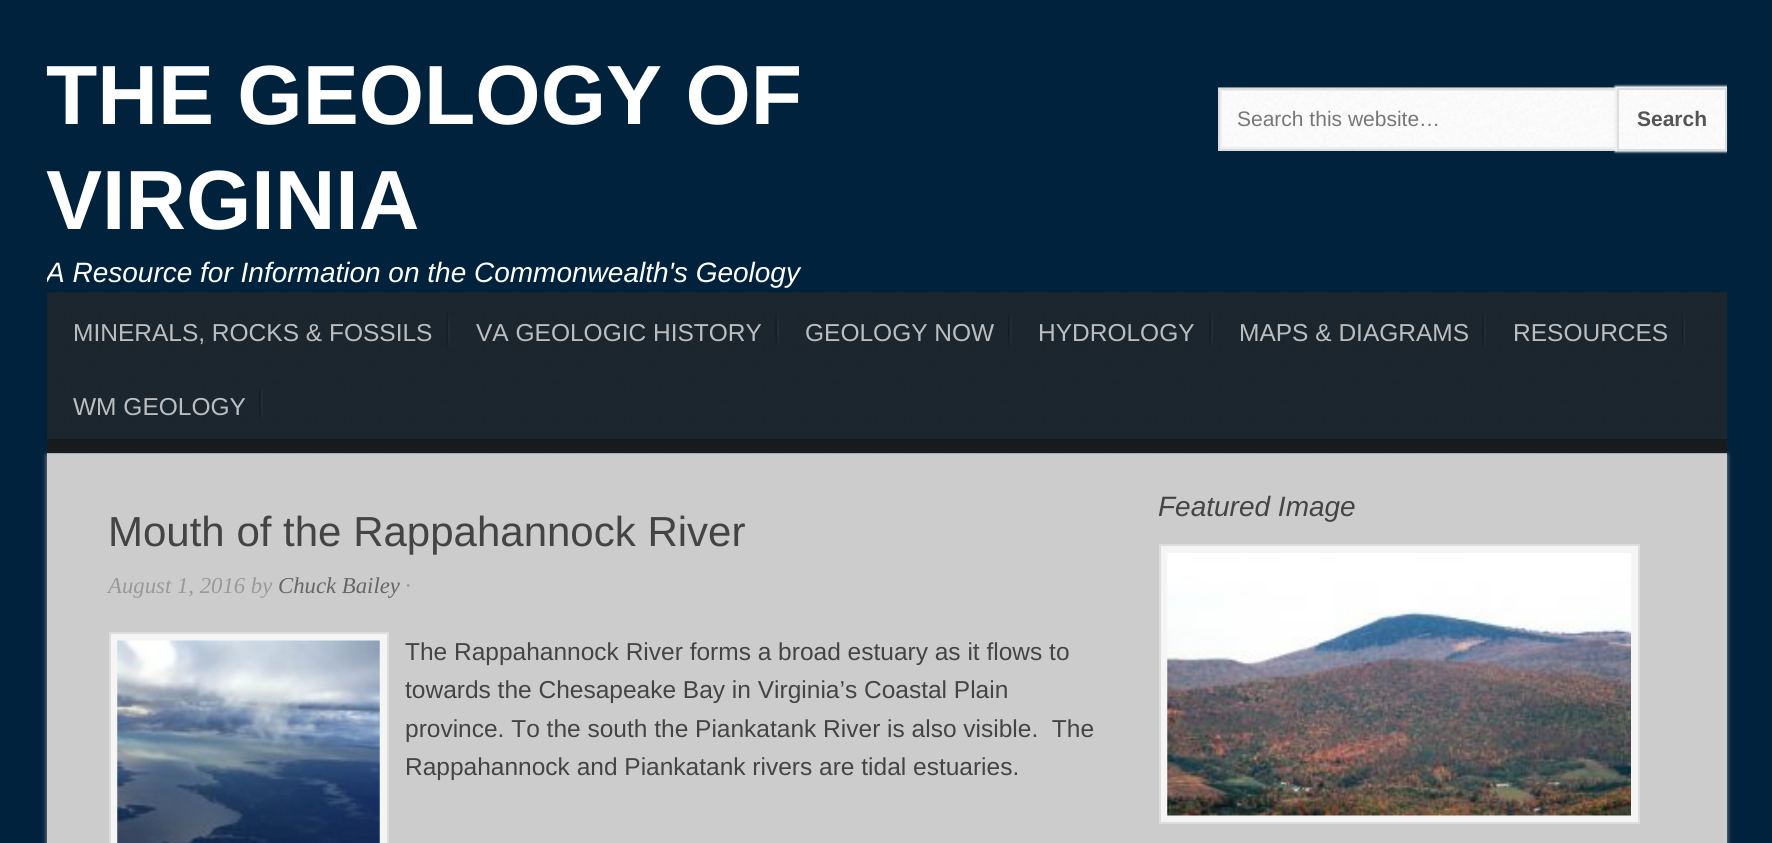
import math
import cairo

surface = cairo.ImageSurface(cairo.FORMAT_RGB24, 1772, 843)
cr = cairo.Context(surface)
options = cairo.FontOptions()
options.set_hint_metrics(cairo.HINT_METRICS_OFF)
options.set_hint_style(cairo.HINT_STYLE_NONE)
cr.set_font_options(options)
cr.set_miter_limit(4)


def rgb(code):
    cr.set_source_rgb(*(v / 255 for v in bytes.fromhex(code[-6:])))


def rrect(x, y, w, h, r):
    cr.new_sub_path()
    for i, (u, v) in enumerate([(x + w - r, y + h - r), (x + r, y + h - r), (x + r, y + r), (x + w - r, y + r)]):
        cr.arc(u, v, r, i * math.pi / 2, (i + 1) * math.pi / 2)
    cr.close_path()


def soft_shadow(x, y, w, h, r, blur, alpha):
    cr.push_group_with_content(cairo.CONTENT_ALPHA)
    cr.set_operator(cairo.OPERATOR_SOURCE)
    for i in range(15, -16, -2):
        e = blur * i / 6
        if min(w, h) + 2 * e > 0:
            cr.set_source_rgba(0, 0, 0, alpha * math.erfc((i - 1) / 8.5) / 2)
            rrect(x - e, y - e, w + 2 * e, h + 2 * e, max(0, min(r + e + blur * .6, min(w, h) / 2 + e)))
            cr.fill()
    cr.mask(cr.pop_group())


def image(path, x, y, w, h):
    cr.save()
    cr.set_source_surface(cairo.ImageSurface.create_from_png(path), x, y)
    cr.rectangle(x, y, w, h)
    cr.fill()
    cr.restore()


rgb("#00223d")
cr.paint()
image("img/1.png", 1218, 87, 406, 60)
cr.rectangle(1221, 90, 400, 58)
rgb("#eeeeee")
cr.stroke()
cr.rectangle(1219, 89, 404, 61)
rgb("#dddddd")
cr.stroke()
cr.save()
cr.rectangle(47, 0, 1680, 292)
cr.clip()
rgb("#eeeeee")
soft_shadow(1615, 86, 114, 66, 0, 1, 1)
cr.restore()
image("img/2.png", 1617, 87, 111, 64)
cr.rectangle(1618, 89, 108, 61)
cr.stroke()
rgb("#999999")
soft_shadow(47, 455, 1680, 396, 0, 2.5, 1)
rgb("#cccccc")
cr.rectangle(47, 453, 1680, 390)
cr.fill()
image("img/3.png", 47, 292, 1681, 162)
cr.set_source_rgba(0.09, 0.09, 0.09, 0.7)
cr.rectangle(47, 439, 1680, 14)
cr.fill()
image("img/4.png", 446, 313, 4, 34)
image("img/5.png", 775, 313, 4, 34)
image("img/6.png", 1008, 314, 4, 32)
image("img/7.png", 1209, 313, 4, 34)
image("img/8.png", 1482, 313, 4, 34)
image("img/9.png", 1682, 313, 3, 34)
image("img/10.png", 259, 388, 4, 31)
rgb("#f5f5f5")
cr.rectangle(1160, 545, 479, 278)
cr.fill_preserve()
rgb("#dddddd")
cr.stroke()
image("img/11.png", 1167, 553, 464, 263)
rgb("#f5f5f5")
cr.rectangle(110, 633, 278, 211)
cr.fill_preserve()
rgb("#dddddd")
cr.stroke()
image("img/12.png", 117, 640, 263, 203)
cr.select_font_face("Liberation Sans", cairo.FONT_SLANT_NORMAL, cairo.FONT_WEIGHT_BOLD)
cr.set_font_size(84)
rgb("#ffffff")
cr.move_to(46, 124)
cr.show_text("THE GEOLOGY OF")
cr.move_to(46, 229)
cr.show_text("VIRGINIA")
cr.save()
cr.rectangle(47, 0, 1120, 292)
cr.clip()
cr.select_font_face("Liberation Sans", cairo.FONT_SLANT_ITALIC)
cr.set_font_size(28)
cr.move_to(46, 282)
cr.show_text("A Resource for Information on the Commonwealth's Geology")
cr.restore()
cr.select_font_face("Liberation Sans")
cr.set_font_size(21)
rgb("#777777")
cr.move_to(1237, 126)
cr.show_text("Search this website…")
cr.select_font_face("Liberation Sans", cairo.FONT_SLANT_NORMAL, cairo.FONT_WEIGHT_BOLD)
rgb("#555555")
cr.move_to(1637, 126)
cr.show_text("Search")
cr.select_font_face("Liberation Sans")
cr.set_font_size(24.5)
rgb("#bbbec0")
for x, y, s in [
    (73, 341, "MINERALS, ROCKS & FOSSILS"),
    (476, 341, "VA GEOLOGIC HISTORY"),
    (805, 341, "GEOLOGY NOW"),
    (1038, 341, "HYDROLOGY"),
    (1239, 341, "MAPS & DIAGRAMS"),
    (1513, 341, "RESOURCES"),
    (73, 415, "WM GEOLOGY"),
]:
    cr.move_to(x, y)
    cr.show_text(s)
cr.select_font_face("Liberation Sans", cairo.FONT_SLANT_ITALIC)
cr.set_font_size(28)
rgb("#444444")
cr.move_to(1158, 516)
cr.show_text("Featured Image")
cr.select_font_face("Liberation Sans")
cr.set_font_size(42)
cr.move_to(108, 546)
cr.show_text("Mouth of the Rappahannock River")
cr.select_font_face("Liberation Serif", cairo.FONT_SLANT_ITALIC)
cr.set_font_size(22.75)
rgb("#999999")
cr.move_to(108, 593)
cr.show_text("August 1, 2016 by")
rgb("#666666")
cr.move_to(278, 593)
cr.show_text("Chuck Bailey")
rgb("#999999")
cr.move_to(405, 593)
cr.show_text("·")
cr.select_font_face("Liberation Sans")
cr.set_font_size(24.5)
rgb("#444444")
for x, y, s in [
    (405, 660, "The Rappahannock River forms a broad estuary as it flows to"),
    (405, 698, "towards the Chesapeake Bay in Virginia’s Coastal Plain"),
    (405, 737, "province. To the south the Piankatank River is also visible.  The"),
    (405, 775, "Rappahannock and Piankatank rivers are tidal estuaries."),
]:
    cr.move_to(x, y)
    cr.show_text(s)
surface.write_to_png("page.png")
